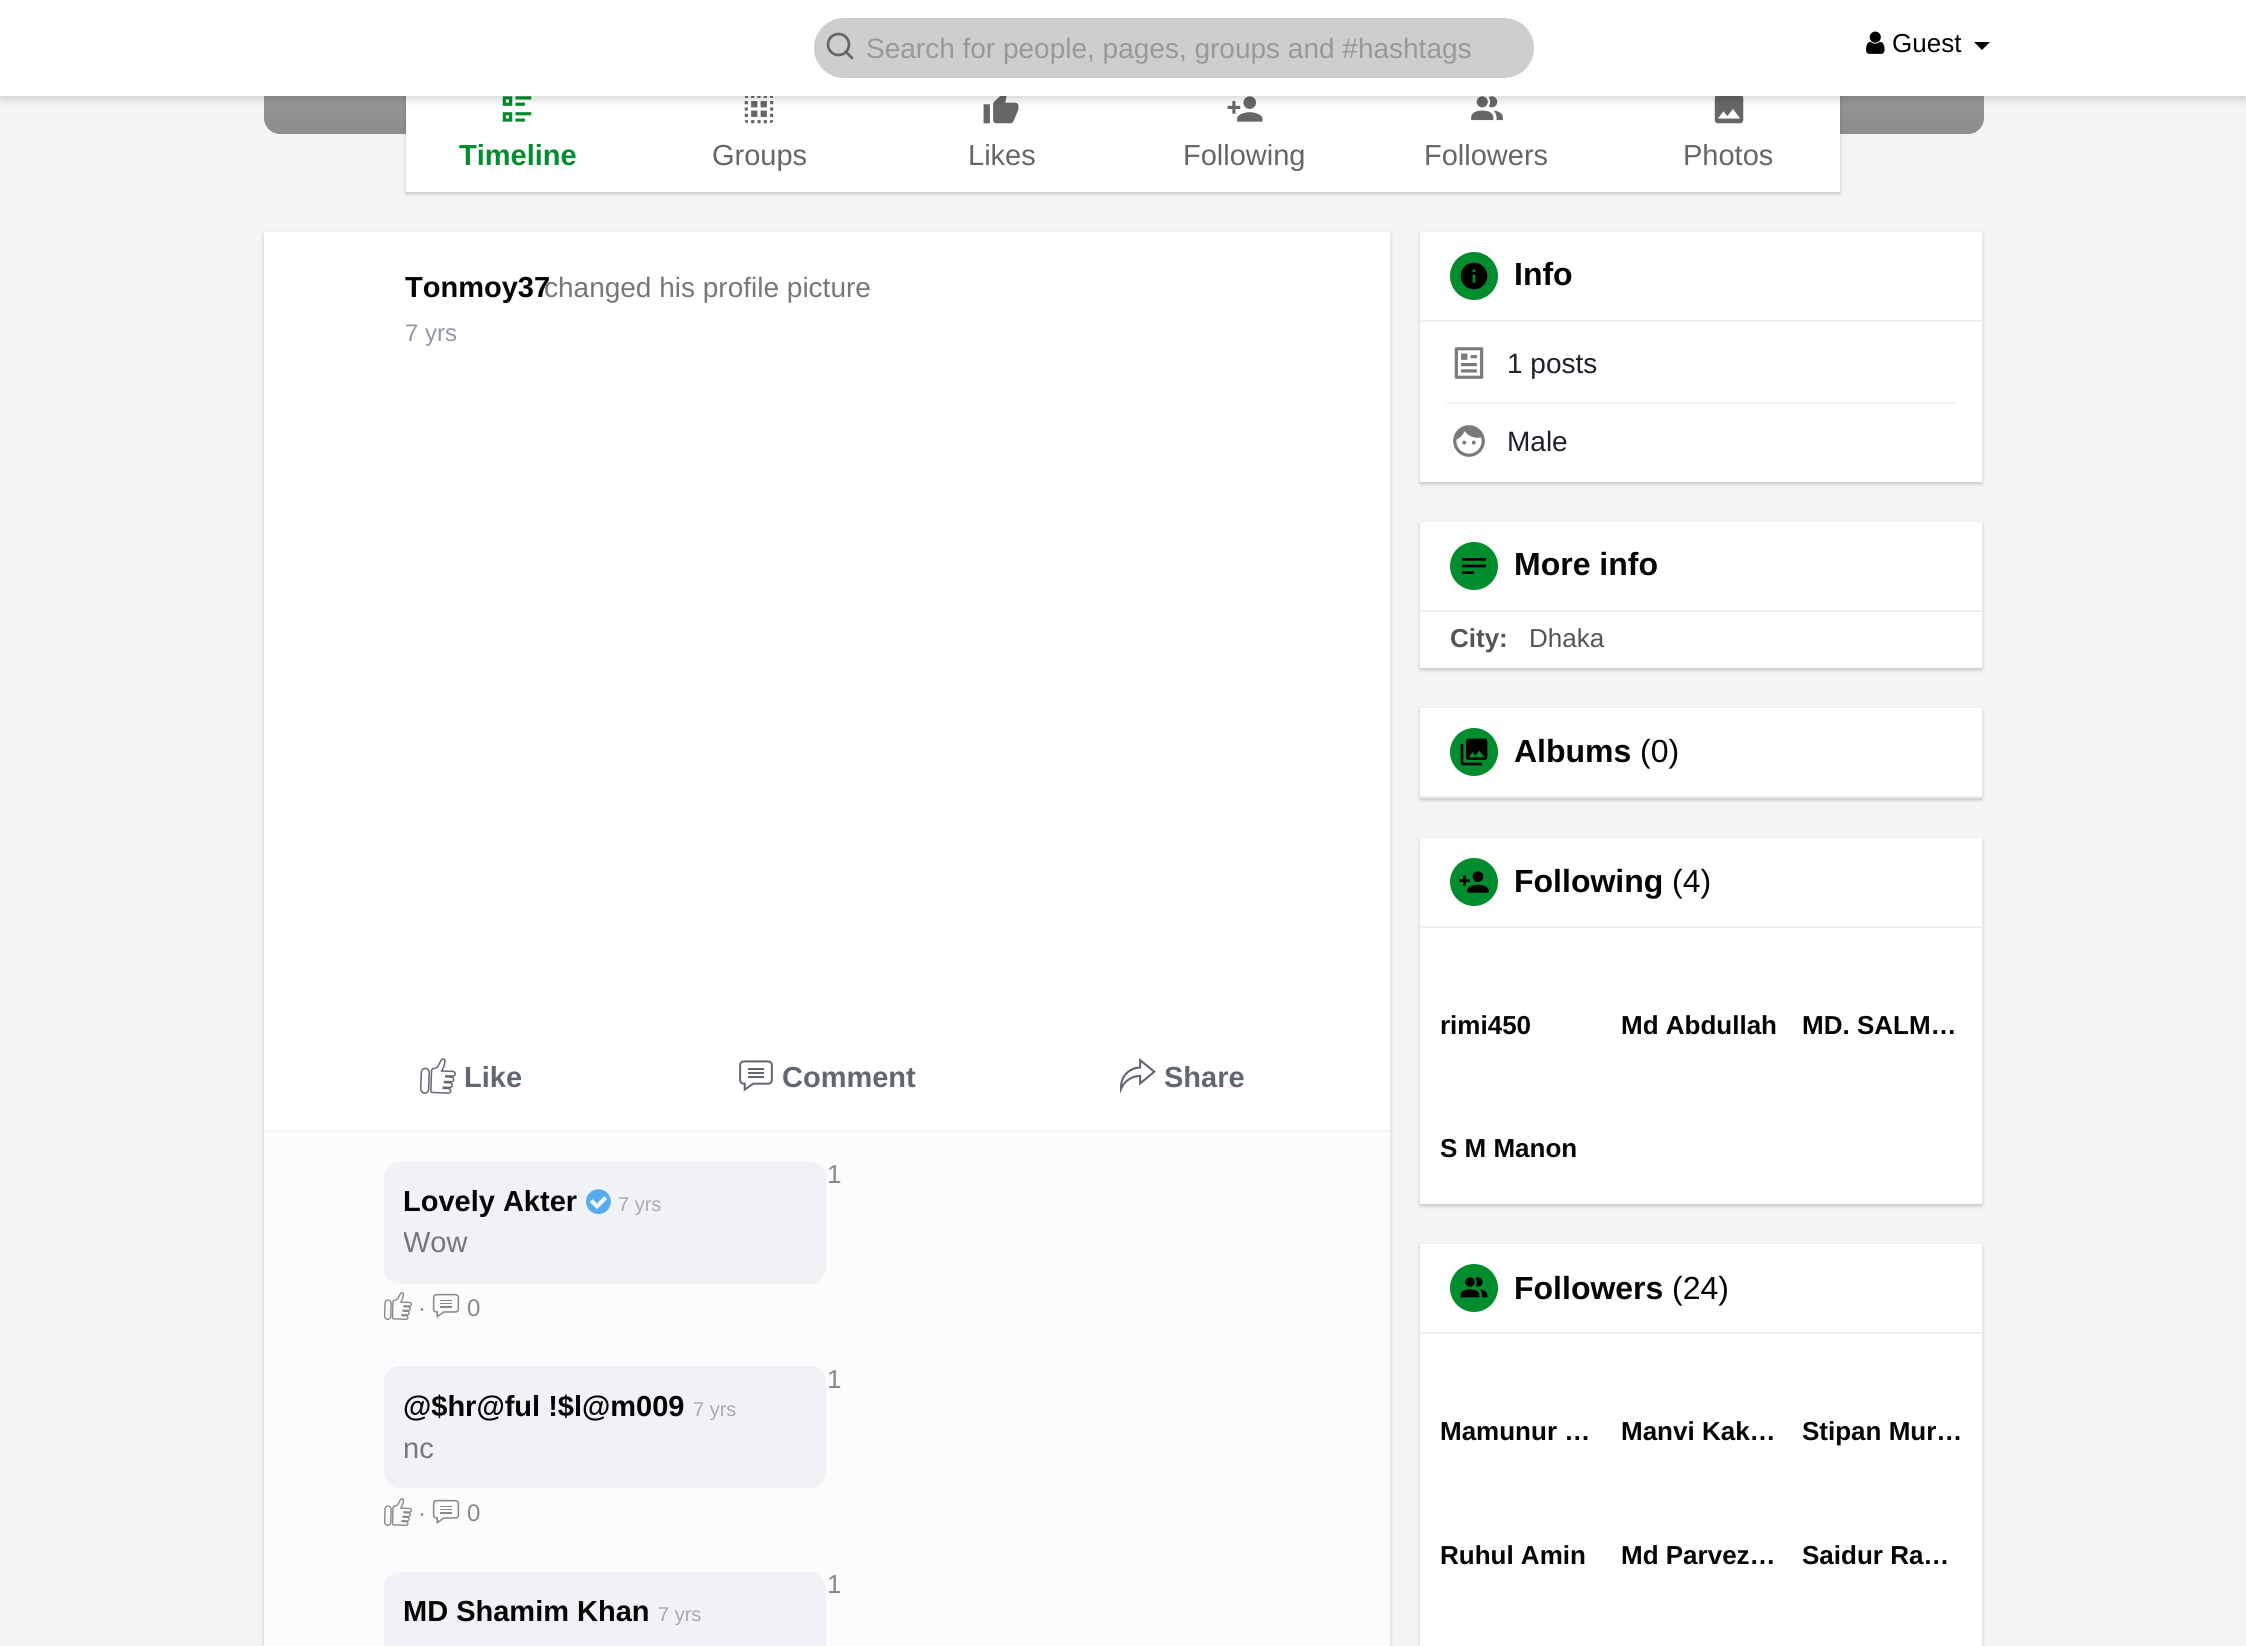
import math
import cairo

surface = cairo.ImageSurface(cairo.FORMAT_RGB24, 2246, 1646)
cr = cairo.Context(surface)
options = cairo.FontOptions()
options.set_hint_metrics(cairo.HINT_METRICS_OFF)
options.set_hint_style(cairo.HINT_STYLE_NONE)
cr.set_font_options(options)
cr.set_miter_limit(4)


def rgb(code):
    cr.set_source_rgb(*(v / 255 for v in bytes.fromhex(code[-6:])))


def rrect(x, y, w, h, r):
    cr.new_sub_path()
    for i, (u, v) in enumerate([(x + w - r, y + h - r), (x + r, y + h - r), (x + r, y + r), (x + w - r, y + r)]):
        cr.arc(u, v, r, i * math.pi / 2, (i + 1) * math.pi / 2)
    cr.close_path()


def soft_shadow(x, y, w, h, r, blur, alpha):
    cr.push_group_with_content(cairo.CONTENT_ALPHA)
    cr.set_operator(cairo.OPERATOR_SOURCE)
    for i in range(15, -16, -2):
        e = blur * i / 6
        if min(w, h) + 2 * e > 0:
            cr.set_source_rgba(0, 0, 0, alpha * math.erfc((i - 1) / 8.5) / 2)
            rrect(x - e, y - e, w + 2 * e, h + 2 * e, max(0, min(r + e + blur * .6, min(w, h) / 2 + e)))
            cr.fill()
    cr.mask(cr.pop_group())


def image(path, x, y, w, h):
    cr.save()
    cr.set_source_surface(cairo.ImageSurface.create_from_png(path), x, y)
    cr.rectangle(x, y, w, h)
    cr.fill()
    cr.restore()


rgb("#f5f5f5")
cr.paint()
rgb("#ffffff")
cr.new_path()
cr.move_to(264, 90)
cr.line_to(1984, 90)
cr.line_to(1984, 118)
cr.curve_to(1984, 127, 1977, 134, 1968, 134)
cr.line_to(280, 134)
cr.curve_to(271, 134, 264, 127, 264, 118)
cr.close_path()
cr.fill()
gradient = cairo.LinearGradient(1124, -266, 1124, 134)
gradient.add_color_stop_rgba(0, 0, 0, 0, 0)
gradient.add_color_stop_rgba(1, 0, 0, 0, 0.45)
cr.set_source(gradient)
rrect(264, -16, 1720, 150, 16)
cr.fill()
rgb("#000000")
soft_shadow(406, 70, 1434, 124, 0, 2, 0.2)
rgb("#ffffff")
cr.rectangle(406, 96, 1434, 96)
cr.fill()
image("img/2.png", 502, 96, 30, 26)
image("img/3.png", 744, 96, 30, 28)
image("img/4.png", 983, 96, 36, 28)
image("img/5.png", 1227, 96, 36, 26)
image("img/6.png", 1471, 96, 32, 25)
image("img/7.png", 1714, 96, 30, 28)
rgb("#000000")
soft_shadow(0, 4, 2246, 96, 0, 4, 0.15)
rgb("#ffffff")
cr.rectangle(0, 0, 2246, 96)
cr.fill()
rgb("#cecece")
rrect(814, 18, 720, 60, 30)
cr.fill()
cr.arc(838.5, 44.5, 10.5, 0, 2 * math.pi)
rgb("#666666")
cr.set_line_width(2.7)
cr.stroke()
cr.new_path()
cr.move_to(852, 58)
cr.line_to(846, 52)
cr.set_line_cap(cairo.LINE_CAP_ROUND)
cr.set_line_join(cairo.LINE_JOIN_ROUND)
cr.stroke()
image("img/1.png", 1866, 31, 19, 23)
rgb("#000000")
cr.new_path()
cr.move_to(1974, 42)
cr.line_to(1990, 42)
cr.line_to(1982, 50)
cr.close_path()
cr.fill()
rgb("#000000")
soft_shadow(264, 234, 1126, 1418, 0, 2, 0.2)
rgb("#ffffff")
cr.rectangle(264, 232, 1126, 898)
cr.fill()
image("img/8.png", 420, 1058, 36, 36)
image("img/9.png", 739, 1060, 34, 32)
image("img/10.png", 1120, 1058, 36, 36)
rgb("#fcfcfc")
cr.rectangle(264, 1132, 1126, 514)
cr.fill()
rgb("#f6f6f6")
cr.rectangle(264, 1130, 1126, 2)
cr.fill()
rgb("#f0f2f5")
rrect(384, 1162, 442, 122, 16)
cr.fill()
image("img/11.png", 586, 1189, 25, 26)
image("img/12.png", 384, 1292, 28, 28)
image("img/13.png", 432, 1293, 28, 25)
rrect(384, 1366, 442, 122, 16)
cr.fill()
image("img/12.png", 384, 1498, 28, 28)
image("img/13.png", 432, 1499, 28, 25)
rrect(384, 1572, 442, 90, 16)
cr.fill()
rgb("#000000")
soft_shadow(1420, 234, 562, 250, 0, 2, 0.2)
rgb("#ffffff")
cr.rectangle(1420, 232, 562, 250)
cr.fill()
rgb("#eeeeee")
cr.rectangle(1420, 320, 562, 2)
cr.fill()
rgb("#018c2d")
cr.arc(1474, 276, 24, 0, 2 * math.pi)
cr.fill()
image("img/14.png", 1460, 262, 28, 28)
image("img/15.png", 1454, 347, 30, 32)
rgb("#f4f4f4")
cr.rectangle(1446, 402, 510, 2)
cr.fill()
image("img/16.png", 1453, 425, 32, 32)
rgb("#000000")
soft_shadow(1420, 524, 562, 146, 0, 2, 0.2)
rgb("#ffffff")
cr.rectangle(1420, 522, 562, 146)
cr.fill()
rgb("#eeeeee")
cr.rectangle(1420, 610, 562, 2)
cr.fill()
rgb("#018c2d")
cr.arc(1474, 566, 24, 0, 2 * math.pi)
cr.fill()
image("img/17.png", 1462, 558, 24, 16)
rgb("#000000")
soft_shadow(1420, 710, 562, 90, 0, 2, 0.2)
rgb("#ffffff")
cr.rectangle(1420, 708, 562, 88)
cr.fill()
rgb("#eeeeee")
cr.rectangle(1420, 796, 562, 2)
cr.fill()
rgb("#018c2d")
cr.arc(1474, 752, 24, 0, 2 * math.pi)
cr.fill()
image("img/18.png", 1460, 738, 28, 28)
rgb("#000000")
soft_shadow(1420, 840, 562, 366, 0, 2, 0.2)
rgb("#ffffff")
cr.rectangle(1420, 838, 562, 366)
cr.fill()
rgb("#eeeeee")
cr.rectangle(1420, 926, 562, 2)
cr.fill()
rgb("#018c2d")
cr.arc(1474, 882, 24, 0, 2 * math.pi)
cr.fill()
image("img/19.png", 1459, 871, 30, 22)
rgb("#000000")
soft_shadow(1420, 1246, 562, 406, 0, 2, 0.2)
rgb("#ffffff")
cr.rectangle(1420, 1244, 562, 402)
cr.fill()
rgb("#eeeeee")
cr.rectangle(1420, 1332, 562, 2)
cr.fill()
rgb("#018c2d")
cr.arc(1474, 1288, 24, 0, 2 * math.pi)
cr.fill()
image("img/20.png", 1460, 1277, 28, 21)
cr.select_font_face("Liberation Sans")
cr.set_font_size(28)
rgb("#999999")
cr.move_to(866, 58)
cr.show_text("Search for people, pages, groups and #hashtags")
cr.set_font_size(26)
rgb("#050505")
cr.move_to(1892, 52)
cr.show_text("Guest")
cr.select_font_face("Liberation Sans", cairo.FONT_SLANT_NORMAL, cairo.FONT_WEIGHT_BOLD)
cr.set_font_size(29)
rgb("#018c2d")
cr.move_to(459, 165)
cr.show_text("Timeline")
cr.select_font_face("Liberation Sans")
rgb("#666666")
for x, y, s in [
    (712, 165, "Groups"),
    (968, 165, "Likes"),
    (1183, 165, "Following"),
    (1424, 165, "Followers"),
    (1683, 165, "Photos"),
]:
    cr.move_to(x, y)
    cr.show_text(s)
cr.select_font_face("Liberation Sans", cairo.FONT_SLANT_NORMAL, cairo.FONT_WEIGHT_BOLD)
rgb("#050505")
cr.move_to(405, 297)
cr.show_text("Tonmoy37")
cr.select_font_face("Liberation Sans")
cr.set_font_size(28)
rgb("#777777")
cr.move_to(544, 297)
cr.show_text("changed his profile picture")
cr.set_font_size(24)
rgb("#9197a3")
cr.move_to(405, 341)
cr.show_text("7 yrs")
cr.select_font_face("Liberation Sans", cairo.FONT_SLANT_NORMAL, cairo.FONT_WEIGHT_BOLD)
cr.set_font_size(29)
rgb("#616770")
for x, y, s in [
    (464, 1087, "Like"),
    (782, 1087, "Comment"),
    (1164, 1087, "Share"),
]:
    cr.move_to(x, y)
    cr.show_text(s)
cr.select_font_face("Liberation Sans")
cr.set_font_size(26)
rgb("#888888")
cr.move_to(827, 1183)
cr.show_text("1")
cr.select_font_face("Liberation Sans", cairo.FONT_SLANT_NORMAL, cairo.FONT_WEIGHT_BOLD)
cr.set_font_size(29)
rgb("#050505")
cr.move_to(403, 1211)
cr.show_text("Lovely Akter")
cr.select_font_face("Liberation Sans")
cr.set_font_size(20)
rgb("#aaaaaa")
cr.move_to(618, 1211)
cr.show_text("7 yrs")
cr.save()
cr.rectangle(404, 1222, 342, 42)
cr.clip()
cr.set_font_size(29)
rgb("#777777")
cr.move_to(403, 1252)
cr.show_text("Wow")
cr.restore()
cr.set_font_size(24)
rgb("#888888")
cr.move_to(418, 1316)
cr.show_text("·")
cr.move_to(467, 1316)
cr.show_text("0")
cr.set_font_size(26)
cr.move_to(827, 1388)
cr.show_text("1")
cr.select_font_face("Liberation Sans", cairo.FONT_SLANT_NORMAL, cairo.FONT_WEIGHT_BOLD)
cr.set_font_size(29)
rgb("#050505")
cr.move_to(403, 1416)
cr.show_text("@$hr@ful !$l@m009")
cr.select_font_face("Liberation Sans")
cr.set_font_size(20)
rgb("#aaaaaa")
cr.move_to(693, 1416)
cr.show_text("7 yrs")
cr.set_font_size(29)
rgb("#777777")
cr.move_to(403, 1458)
cr.show_text("nc")
cr.set_font_size(24)
rgb("#888888")
cr.move_to(418, 1521)
cr.show_text("·")
cr.move_to(467, 1521)
cr.show_text("0")
cr.set_font_size(26)
cr.move_to(827, 1593)
cr.show_text("1")
cr.select_font_face("Liberation Sans", cairo.FONT_SLANT_NORMAL, cairo.FONT_WEIGHT_BOLD)
cr.set_font_size(29)
rgb("#050505")
cr.move_to(403, 1621)
cr.show_text("MD Shamim Khan")
cr.select_font_face("Liberation Sans")
cr.set_font_size(20)
rgb("#aaaaaa")
cr.move_to(658, 1621)
cr.show_text("7 yrs")
cr.select_font_face("Liberation Sans", cairo.FONT_SLANT_NORMAL, cairo.FONT_WEIGHT_BOLD)
cr.set_font_size(32)
rgb("#050505")
cr.move_to(1514, 285)
cr.show_text("Info")
cr.select_font_face("Liberation Sans")
cr.set_font_size(28)
rgb("#1d2129")
cr.move_to(1507, 373)
cr.show_text("1 posts")
cr.move_to(1507, 451)
cr.show_text("Male")
cr.select_font_face("Liberation Sans", cairo.FONT_SLANT_NORMAL, cairo.FONT_WEIGHT_BOLD)
cr.set_font_size(32)
rgb("#050505")
cr.move_to(1514, 575)
cr.show_text("More info")
cr.set_font_size(26)
rgb("#555555")
cr.move_to(1450, 647)
cr.show_text("City:")
cr.select_font_face("Liberation Sans")
cr.move_to(1529, 647)
cr.show_text("Dhaka")
cr.select_font_face("Liberation Sans", cairo.FONT_SLANT_NORMAL, cairo.FONT_WEIGHT_BOLD)
cr.set_font_size(32)
rgb("#050505")
cr.move_to(1514, 762)
cr.show_text("Albums")
cr.select_font_face("Liberation Sans")
cr.move_to(1640, 762)
cr.show_text("(0)")
cr.select_font_face("Liberation Sans", cairo.FONT_SLANT_NORMAL, cairo.FONT_WEIGHT_BOLD)
cr.move_to(1514, 892)
cr.show_text("Following")
cr.select_font_face("Liberation Sans")
cr.move_to(1672, 892)
cr.show_text("(4)")
cr.select_font_face("Liberation Sans", cairo.FONT_SLANT_NORMAL, cairo.FONT_WEIGHT_BOLD)
cr.set_font_size(26)
for x, y, s in [
    (1440, 1034, "rimi450"),
    (1621, 1034, "Md Abdullah"),
    (1802, 1034, "MD. SALM…"),
    (1440, 1157, "S M Manon"),
]:
    cr.move_to(x, y)
    cr.show_text(s)
cr.set_font_size(32)
cr.move_to(1514, 1299)
cr.show_text("Followers")
cr.select_font_face("Liberation Sans")
cr.move_to(1672, 1299)
cr.show_text("(24)")
cr.select_font_face("Liberation Sans", cairo.FONT_SLANT_NORMAL, cairo.FONT_WEIGHT_BOLD)
cr.set_font_size(26)
for x, y, s in [
    (1440, 1440, "Mamunur …"),
    (1621, 1440, "Manvi Kak…"),
    (1802, 1440, "Stipan Mur…"),
    (1440, 1564, "Ruhul Amin"),
    (1621, 1564, "Md Parvez…"),
    (1802, 1564, "Saidur Ra…"),
]:
    cr.move_to(x, y)
    cr.show_text(s)
surface.write_to_png("page.png")
